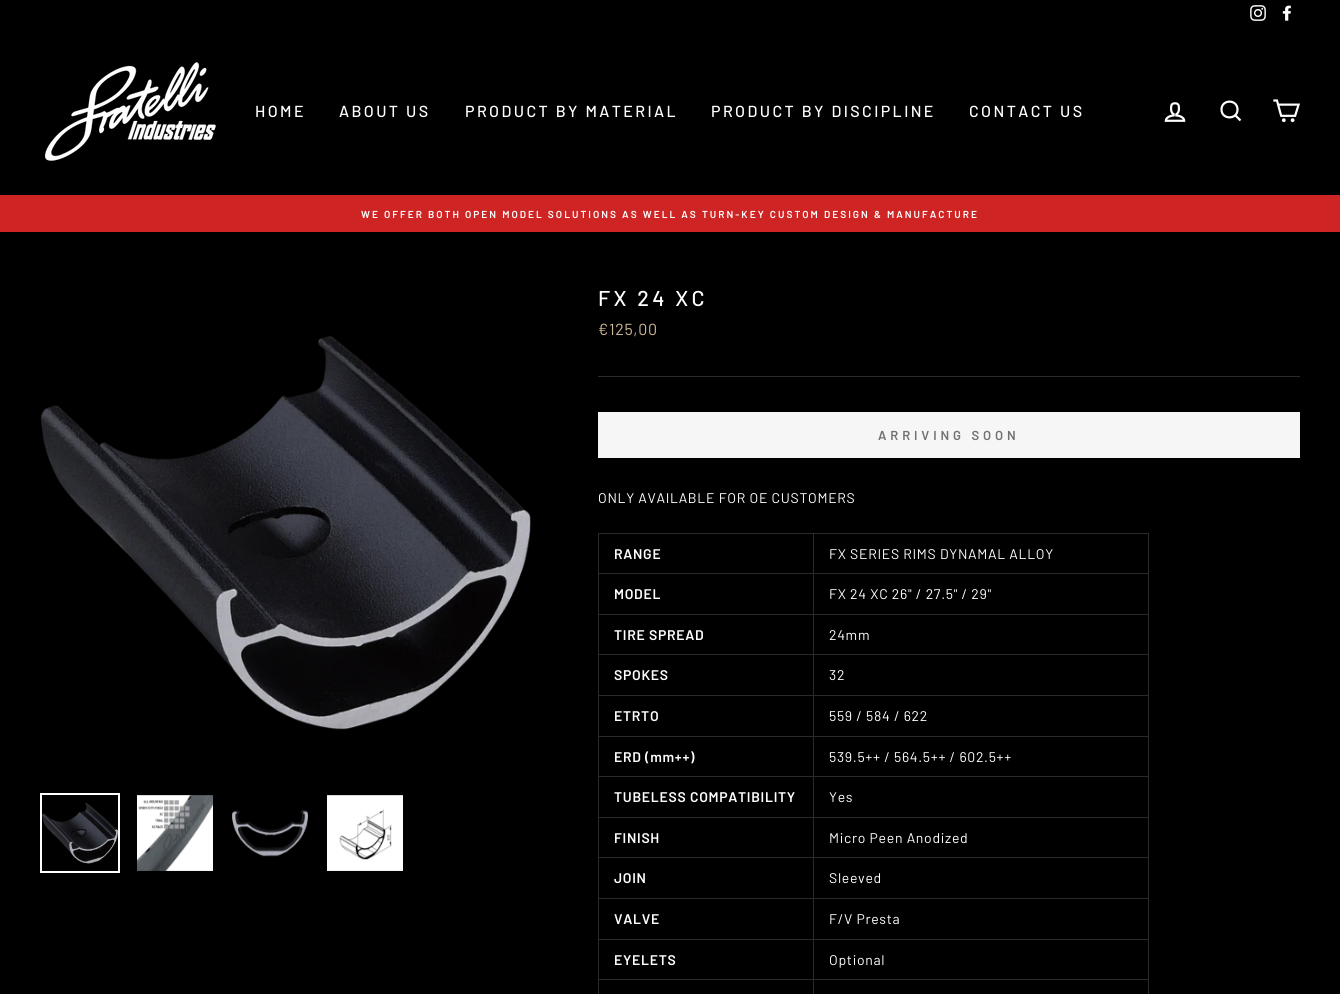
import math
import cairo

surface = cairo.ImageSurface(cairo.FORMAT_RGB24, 1340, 994)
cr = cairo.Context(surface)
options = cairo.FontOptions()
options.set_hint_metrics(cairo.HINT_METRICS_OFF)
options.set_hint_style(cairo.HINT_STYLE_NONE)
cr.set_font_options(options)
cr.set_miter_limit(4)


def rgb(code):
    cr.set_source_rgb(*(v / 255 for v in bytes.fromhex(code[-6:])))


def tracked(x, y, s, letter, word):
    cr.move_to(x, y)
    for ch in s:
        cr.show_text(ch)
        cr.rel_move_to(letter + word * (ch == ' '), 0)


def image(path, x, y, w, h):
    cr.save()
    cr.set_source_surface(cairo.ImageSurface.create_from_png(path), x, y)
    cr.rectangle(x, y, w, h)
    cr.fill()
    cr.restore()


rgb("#000000")
cr.paint()
image("img/1.png", 1250, 5, 16, 16)
image("img/2.png", 1282, 5, 9, 16)
image("img/3.png", 45, 62, 171, 99)
image("img/4.png", 1164, 102, 22, 20)
cr.new_path()
cr.move_to(1237.5, 109.5)
cr.curve_to(1237.5, 120, 1221.5, 120, 1221.5, 109.5)
cr.curve_to(1221.5, 99, 1237.5, 99, 1237.5, 109.5)
cr.close_path()
cr.move_to(1240.5, 120.5)
cr.line_to(1235.5, 115.5)
rgb("#ffffff")
cr.set_line_width(2.2)
cr.stroke()
image("img/5.png", 1273, 99, 27, 24)
rgb("#cf2424")
cr.rectangle(0, 195, 1340, 37)
cr.fill()
image("img/6.png", 40, 336, 491, 394)
cr.rectangle(41, 794, 78, 78)
rgb("#ffffff")
cr.set_line_width(2)
cr.stroke()
image("img/7.png", 42, 802, 76, 62)
image("img/8.png", 137, 795, 76, 76)
image("img/9.png", 232, 810, 76, 47)
image("img/10.png", 327, 795, 76, 76)
for x, y, w, h, color in [
    (598, 376, 702, 1, "#2b2a27"),
    (598, 412, 702, 46, "#f6f6f6"),
    (598, 533, 551, 461, "#2b2a27"),
    (599, 534, 214, 39, "#000000"),
    (814, 534, 334, 39, "#000000"),
    (599, 574, 214, 40, "#000000"),
    (814, 574, 334, 40, "#000000"),
    (599, 615, 214, 39, "#000000"),
    (814, 615, 334, 39, "#000000"),
    (599, 655, 214, 40, "#000000"),
    (814, 655, 334, 40, "#000000"),
    (599, 696, 214, 40, "#000000"),
    (814, 696, 334, 40, "#000000"),
    (599, 737, 214, 39, "#000000"),
    (814, 737, 334, 39, "#000000"),
    (599, 777, 214, 40, "#000000"),
    (814, 777, 334, 40, "#000000"),
    (599, 818, 214, 39, "#000000"),
    (814, 818, 334, 39, "#000000"),
    (599, 858, 214, 40, "#000000"),
    (814, 858, 334, 40, "#000000"),
    (599, 899, 214, 40, "#000000"),
    (814, 899, 334, 40, "#000000"),
    (599, 940, 214, 39, "#000000"),
    (814, 940, 334, 39, "#000000"),
    (599, 980, 214, 14, "#000000"),
    (814, 980, 334, 14, "#000000"),
]:
    rgb(color)
    cr.rectangle(x, y, w, h)
    cr.fill()
cr.select_font_face("Barlow Medium")
cr.set_font_size(16)
rgb("#ffffff")
for x, y, s in [
    (255, 117, "HOME"),
    (339, 117, "ABOUT US"),
    (465, 117, "PRODUCT BY MATERIAL"),
    (711, 117, "PRODUCT BY DISCIPLINE"),
    (969, 117, "CONTACT US"),
]:
    tracked(x, y, s, 2.4, 0)
cr.select_font_face("Barlow SemiBold")
cr.set_font_size(10.12)
tracked(361, 218, "WE OFFER BOTH OPEN MODEL SOLUTIONS AS WELL AS TURN-KEY CUSTOM DESIGN & MANUFACTURE", 2.02, 0)
cr.select_font_face("Barlow Medium")
cr.set_font_size(21.5)
tracked(598, 306, "FX 24 XC", 3.25, 0)
cr.select_font_face("Barlow")
cr.set_font_size(16)
rgb("#d1ba98")
tracked(598, 335, "€125,00", 0.7, 0)
cr.select_font_face("Barlow SemiBold")
cr.set_font_size(13)
rgb("#717171")
tracked(878, 440, "ARRIVING SOON", 3.9, 0)
cr.select_font_face("Barlow")
cr.set_font_size(14)
rgb("#ffffff")
tracked(598, 503, "ONLY AVAILABLE FOR OE CUSTOMERS", 0.7, 0)
cr.select_font_face("Barlow SemiBold")
tracked(614, 559, "RANGE", 0.7, 0)
cr.select_font_face("Barlow")
tracked(829, 559, "FX SERIES RIMS DYNAMAL ALLOY", 0.7, 0)
cr.select_font_face("Barlow SemiBold")
tracked(614, 599, "MODEL", 0.7, 0)
cr.select_font_face("Barlow")
tracked(829, 599, "FX 24 XC 26\" / 27.5\" / 29\"", 0.7, 0)
cr.select_font_face("Barlow SemiBold")
tracked(614, 640, "TIRE SPREAD", 0.7, 0)
cr.select_font_face("Barlow")
tracked(829, 640, "24mm", 0.7, 0)
cr.select_font_face("Barlow SemiBold")
tracked(614, 680, "SPOKES", 0.7, 0)
cr.select_font_face("Barlow")
tracked(829, 680, "32", 0.7, 0)
cr.select_font_face("Barlow SemiBold")
tracked(614, 721, "ETRTO", 0.7, 0)
cr.select_font_face("Barlow")
tracked(829, 721, "559 / 584 / 622", 0.7, 0)
cr.select_font_face("Barlow SemiBold")
tracked(614, 762, "ERD (mm++)", 0.7, 0)
cr.select_font_face("Barlow")
tracked(829, 762, "539.5++ / 564.5++ / 602.5++", 0.7, 0)
cr.select_font_face("Barlow SemiBold")
tracked(614, 802, "TUBELESS COMPATIBILITY", 0.7, 0)
cr.select_font_face("Barlow")
tracked(829, 802, "Yes", 0.7, 0)
cr.select_font_face("Barlow SemiBold")
tracked(614, 843, "FINISH", 0.7, 0)
cr.select_font_face("Barlow")
tracked(829, 843, "Micro Peen Anodized", 0.7, 0)
cr.select_font_face("Barlow SemiBold")
tracked(614, 883, "JOIN", 0.7, 0)
cr.select_font_face("Barlow")
tracked(829, 883, "Sleeved", 0.7, 0)
cr.select_font_face("Barlow SemiBold")
tracked(614, 924, "VALVE", 0.7, 0)
cr.select_font_face("Barlow")
tracked(829, 924, "F/V Presta", 0.7, 0)
cr.select_font_face("Barlow SemiBold")
tracked(614, 965, "EYELETS", 0.7, 0)
cr.select_font_face("Barlow")
tracked(829, 965, "Optional", 0.7, 0)
surface.write_to_png("page.png")
